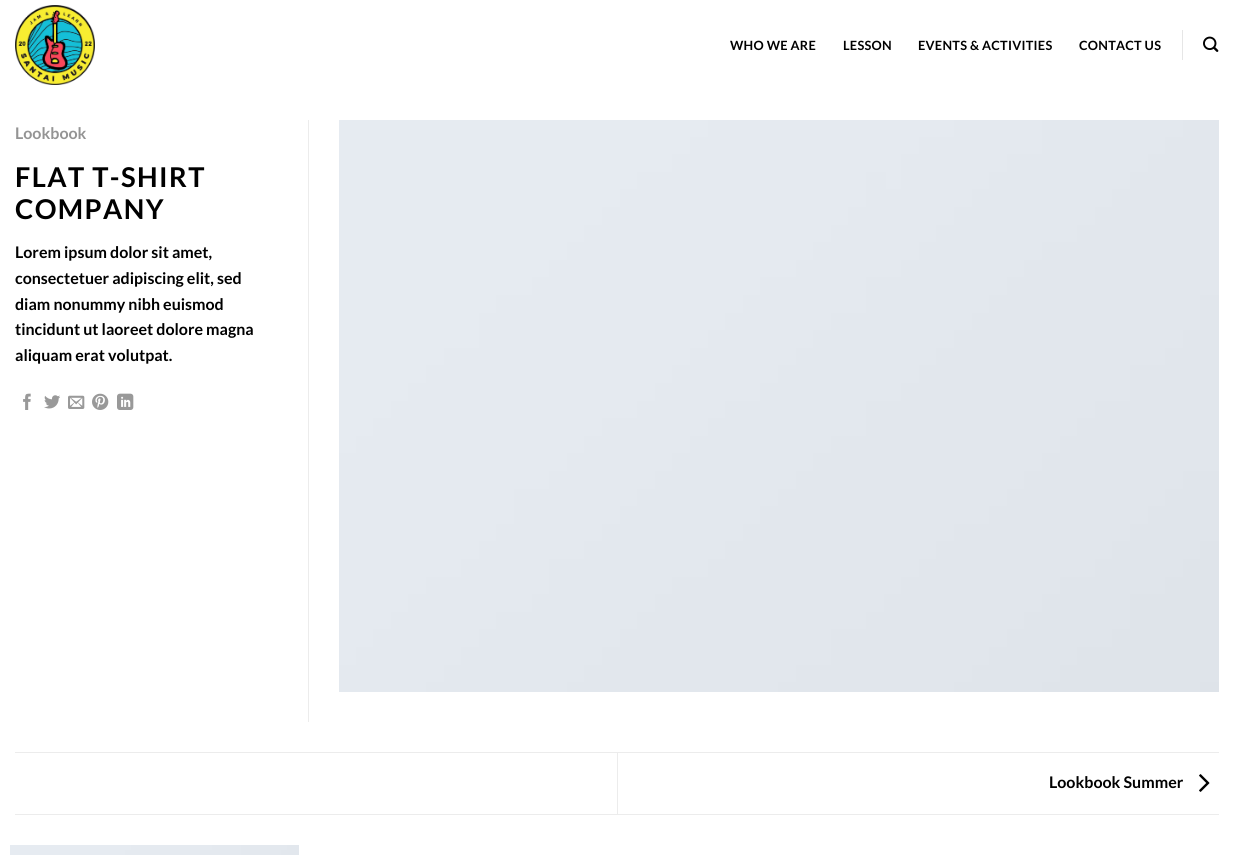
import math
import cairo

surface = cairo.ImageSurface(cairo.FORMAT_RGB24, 1234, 855)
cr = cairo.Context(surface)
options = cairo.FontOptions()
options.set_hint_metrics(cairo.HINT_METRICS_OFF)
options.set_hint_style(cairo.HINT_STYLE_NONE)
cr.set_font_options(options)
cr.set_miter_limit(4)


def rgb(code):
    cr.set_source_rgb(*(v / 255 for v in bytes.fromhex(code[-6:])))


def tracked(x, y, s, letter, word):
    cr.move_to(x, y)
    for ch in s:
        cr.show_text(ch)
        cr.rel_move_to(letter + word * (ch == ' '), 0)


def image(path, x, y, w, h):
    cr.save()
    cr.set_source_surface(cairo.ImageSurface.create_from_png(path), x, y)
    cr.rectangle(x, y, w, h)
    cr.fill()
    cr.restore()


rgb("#ffffff")
cr.paint()
image("img/1.png", 15, 5, 80, 80)
rgb("#e6e6e6")
cr.rectangle(1182, 30, 1, 30)
cr.fill()
image("img/2.png", 1203, 36, 16, 16)
rgb("#ececec")
cr.rectangle(308, 120, 1, 602)
cr.fill()
image("img/3.png", 23, 393, 8, 17)
image("img/4.png", 44, 395, 16, 14)
image("img/5.png", 68, 395, 17, 14)
image("img/6.png", 92, 393, 17, 17)
image("img/7.png", 117, 393, 17, 17)
image("img/8.png", 339, 120, 880, 572)
for x, y, w, h, color in [
    (15, 752, 1204, 1, "#ececec"),
    (15, 814, 1204, 1, "#ececec"),
    (617, 753, 1, 61, "#ececec"),
]:
    rgb(color)
    cr.rectangle(x, y, w, h)
    cr.fill()
image("img/9.png", 1199, 774, 11, 18)
image("img/10.png", 10, 845, 289, 10)
cr.select_font_face("Lato", cairo.FONT_SLANT_NORMAL, cairo.FONT_WEIGHT_BOLD)
cr.set_font_size(12.75)
rgb("#000000")
for x, y, s in [
    (730, 50, "WHO WE ARE"),
    (843, 50, "LESSON"),
    (918, 50, "EVENTS & ACTIVITIES"),
    (1079, 50, "CONTACT US"),
]:
    tracked(x, y, s, 0.25, 0)
cr.set_font_size(16)
rgb("#949494")
cr.move_to(15, 139)
cr.show_text("Lookbook")
cr.set_font_size(27.25)
rgb("#000000")
tracked(15, 187, "FLAT T-SHIRT", 1.4, 0)
tracked(15, 219, "COMPANY", 1.4, 0)
cr.set_font_size(16)
for x, y, s in [
    (15, 258, "Lorem ipsum dolor sit amet,"),
    (15, 284, "consectetuer adipiscing elit, sed"),
    (15, 310, "diam nonummy nibh euismod"),
    (15, 335, "tincidunt ut laoreet dolore magna"),
    (15, 361, "aliquam erat volutpat."),
    (1049, 788, "Lookbook Summer"),
]:
    cr.move_to(x, y)
    cr.show_text(s)
surface.write_to_png("page.png")
